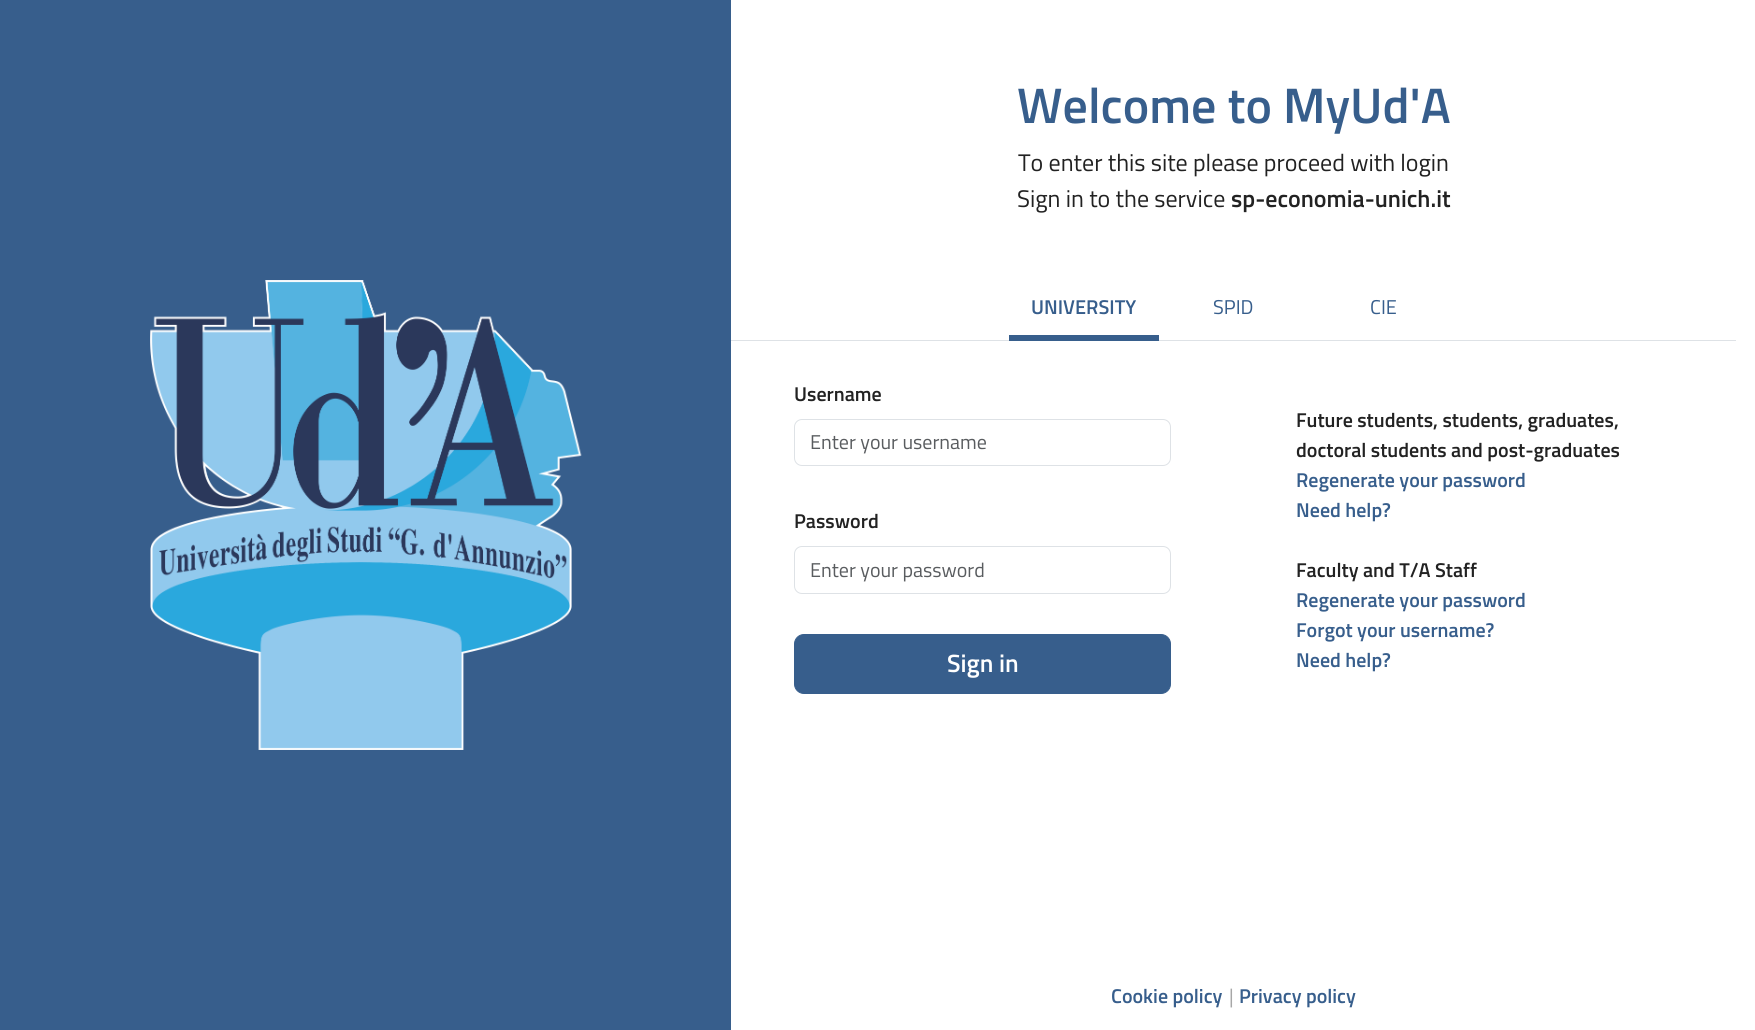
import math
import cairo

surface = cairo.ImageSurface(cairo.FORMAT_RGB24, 1755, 1030)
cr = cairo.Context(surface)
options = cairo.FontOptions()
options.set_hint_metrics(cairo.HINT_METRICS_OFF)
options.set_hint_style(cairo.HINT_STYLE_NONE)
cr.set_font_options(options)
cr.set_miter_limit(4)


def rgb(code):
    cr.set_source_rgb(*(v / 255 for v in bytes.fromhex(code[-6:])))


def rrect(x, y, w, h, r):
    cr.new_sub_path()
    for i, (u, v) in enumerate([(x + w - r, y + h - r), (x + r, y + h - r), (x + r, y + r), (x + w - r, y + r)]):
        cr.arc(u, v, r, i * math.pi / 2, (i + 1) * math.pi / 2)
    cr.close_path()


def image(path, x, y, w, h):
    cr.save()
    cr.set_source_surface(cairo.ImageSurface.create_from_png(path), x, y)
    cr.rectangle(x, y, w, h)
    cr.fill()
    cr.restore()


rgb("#ffffff")
cr.paint()
rgb("#375e8c")
cr.rectangle(0, 0, 731, 1030)
cr.fill()
image("img/1.png", 150, 280, 432, 470)
rgb("#dee2e6")
cr.rectangle(731, 340, 1005, 1)
cr.fill()
rgb("#375e8c")
cr.rectangle(1009, 335, 150, 6)
cr.fill()
rrect(794.5, 419.5, 376, 46, 7.5)
rgb("#dee2e6")
cr.set_line_width(1)
cr.stroke()
rrect(794.5, 546.5, 376, 47, 7.5)
cr.stroke()
rgb("#375e8c")
rrect(794.5, 634.5, 376, 59, 9.5)
cr.fill_preserve()
cr.stroke()
cr.select_font_face("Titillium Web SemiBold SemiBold")
cr.set_font_size(50)
cr.move_to(1017, 123)
cr.show_text("Welcome to MyUd'A")
cr.select_font_face("Titillium Web")
cr.set_font_size(24)
rgb("#222222")
cr.move_to(1018, 171)
cr.show_text("To enter this site please proceed with login")
cr.move_to(1017, 207)
cr.show_text("Sign in to the service")
cr.select_font_face("Titillium Web SemiBold SemiBold")
cr.move_to(1231, 207)
cr.show_text("sp-economia-unich.it")
cr.set_font_size(20)
rgb("#375e8c")
cr.move_to(1031, 314)
cr.show_text("UNIVERSITY")
cr.select_font_face("Titillium Web")
cr.move_to(1213, 314)
cr.show_text("SPID")
cr.move_to(1370, 314)
cr.show_text("CIE")
cr.select_font_face("Titillium Web SemiBold SemiBold")
rgb("#222222")
cr.move_to(794, 401)
cr.show_text("Username")
cr.select_font_face("Titillium Web")
rgb("#595c5f")
cr.move_to(810, 449)
cr.show_text("Enter your username")
cr.select_font_face("Titillium Web SemiBold SemiBold")
rgb("#222222")
cr.move_to(794, 528)
cr.show_text("Password")
cr.select_font_face("Titillium Web")
rgb("#595c5f")
cr.move_to(810, 577)
cr.show_text("Enter your password")
cr.select_font_face("Titillium Web SemiBold SemiBold")
cr.set_font_size(25)
rgb("#ffffff")
cr.move_to(947, 672)
cr.show_text("Sign in")
cr.set_font_size(20)
rgb("#222222")
cr.move_to(1296, 427)
cr.show_text("Future students, students, graduates,")
cr.move_to(1296, 457)
cr.show_text("doctoral students and post-graduates")
rgb("#375e8c")
cr.move_to(1296, 487)
cr.show_text("Regenerate your password")
cr.move_to(1296, 517)
cr.show_text("Need help?")
rgb("#222222")
cr.move_to(1296, 577)
cr.show_text("Faculty and T/A Staff")
rgb("#375e8c")
for x, y, s in [
    (1296, 607, "Regenerate your password"),
    (1296, 637, "Forgot your username?"),
    (1296, 667, "Need help?"),
    (1111, 1003, "Cookie policy"),
]:
    cr.move_to(x, y)
    cr.show_text(s)
cr.select_font_face("Titillium Web")
rgb("#a7a7a7")
cr.move_to(1229, 1003)
cr.show_text("|")
cr.select_font_face("Titillium Web SemiBold SemiBold")
rgb("#375e8c")
cr.move_to(1239, 1003)
cr.show_text("Privacy policy")
surface.write_to_png("page.png")
